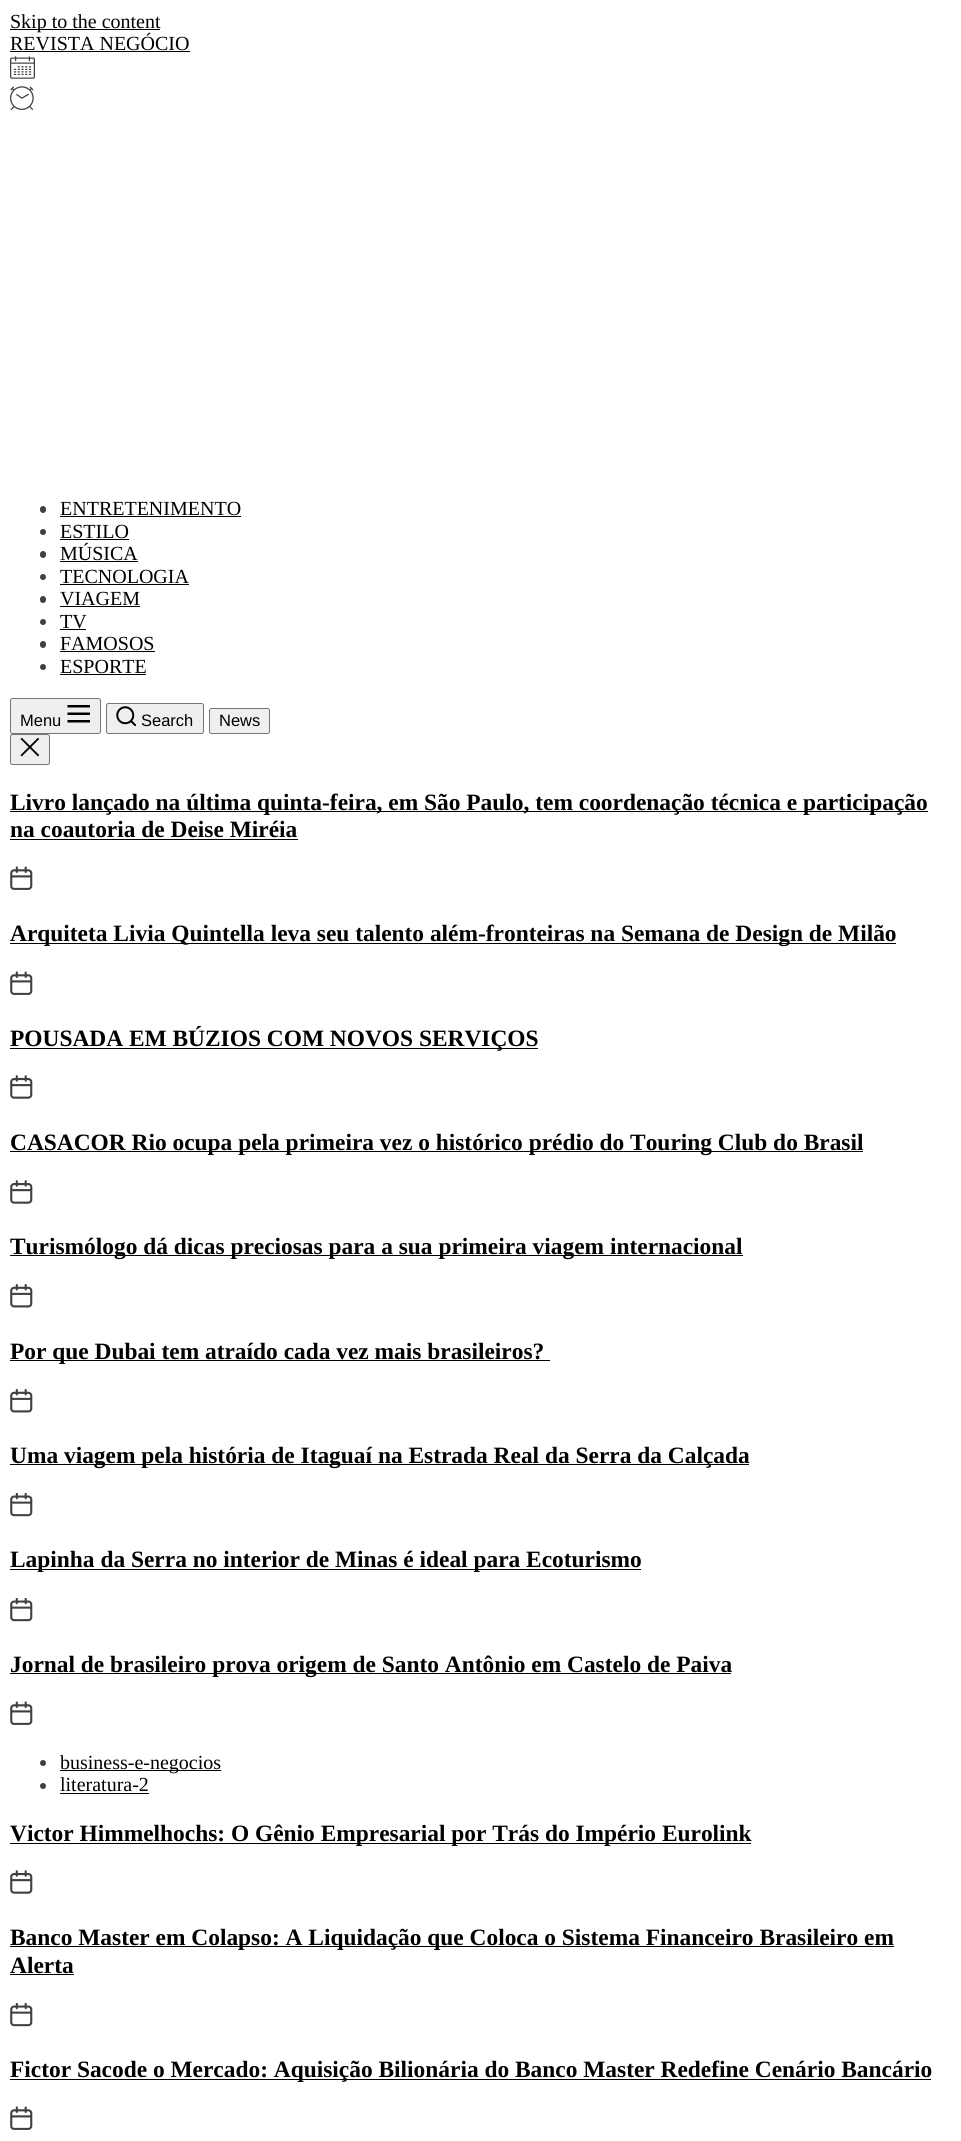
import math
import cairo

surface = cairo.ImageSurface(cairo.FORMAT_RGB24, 961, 2141)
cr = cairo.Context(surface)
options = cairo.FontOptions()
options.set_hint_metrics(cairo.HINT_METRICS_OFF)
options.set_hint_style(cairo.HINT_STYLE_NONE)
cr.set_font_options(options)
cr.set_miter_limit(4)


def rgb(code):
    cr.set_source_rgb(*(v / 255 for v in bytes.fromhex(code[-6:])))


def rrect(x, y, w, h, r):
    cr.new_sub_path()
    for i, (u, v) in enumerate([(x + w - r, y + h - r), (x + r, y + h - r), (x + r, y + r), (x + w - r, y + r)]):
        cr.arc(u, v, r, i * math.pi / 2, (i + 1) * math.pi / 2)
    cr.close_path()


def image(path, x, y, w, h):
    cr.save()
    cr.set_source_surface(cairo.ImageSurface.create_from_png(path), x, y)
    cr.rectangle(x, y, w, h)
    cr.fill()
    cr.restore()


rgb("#ffffff")
cr.paint()
rgb("#000000")
cr.rectangle(10, 29, 150, 1)
cr.fill()
cr.rectangle(10, 51, 180, 1)
cr.fill()
image("img/1.png", 10, 56, 25, 23)
image("img/2.png", 10, 86, 24, 24)
rgb("#404040")
rrect(40, 506, 6, 7, 3)
cr.fill()
rgb("#000000")
cr.rectangle(60, 516, 181, 1)
cr.fill()
rgb("#404040")
cr.arc(43, 532, 3, 0, 2 * math.pi)
cr.fill()
rgb("#000000")
cr.rectangle(60, 539, 69, 1)
cr.fill()
rgb("#404040")
rrect(40, 551, 6, 7, 3)
cr.fill()
rgb("#000000")
cr.rectangle(60, 561, 78, 1)
cr.fill()
rgb("#404040")
cr.arc(43, 577, 3, 0, 2 * math.pi)
cr.fill()
rgb("#000000")
cr.rectangle(60, 584, 129, 1)
cr.fill()
rgb("#404040")
rrect(40, 596, 6, 7, 3)
cr.fill()
rgb("#000000")
cr.rectangle(60, 606, 80, 1)
cr.fill()
rgb("#404040")
cr.arc(43, 622, 3, 0, 2 * math.pi)
cr.fill()
rgb("#000000")
cr.rectangle(60, 629, 26, 1)
cr.fill()
rgb("#404040")
rrect(40, 641, 6, 7, 3)
cr.fill()
rgb("#000000")
cr.rectangle(60, 651, 95, 1)
cr.fill()
rgb("#404040")
cr.arc(43, 667, 3, 0, 2 * math.pi)
cr.fill()
rgb("#000000")
cr.rectangle(60, 674, 86, 1)
cr.fill()
rgb("#efefef")
rrect(10.5, 698.5, 90, 35, 2)
cr.fill_preserve()
rgb("#767676")
cr.set_line_width(1)
cr.stroke()
image("img/3.png", 67, 705, 23, 18)
rgb("#efefef")
rrect(106.5, 703.5, 97, 30, 2)
cr.fill_preserve()
rgb("#767676")
cr.stroke()
image("img/4.png", 116, 706, 20, 20)
rgb("#efefef")
rrect(209.5, 708.5, 60, 25, 2)
cr.fill_preserve()
rgb("#767676")
cr.stroke()
rgb("#efefef")
rrect(10.5, 734.5, 39, 30, 2)
cr.fill_preserve()
rgb("#767676")
cr.stroke()
image("img/5.png", 20, 738, 20, 19)
rgb("#000000")
cr.rectangle(10, 811, 918, 1)
cr.fill()
cr.rectangle(10, 839, 288, 1)
cr.fill()
image("img/6.png", 10, 866, 23, 24)
cr.rectangle(10, 943, 886, 1)
cr.fill()
image("img/6.png", 10, 971, 23, 24)
cr.rectangle(10, 1048, 528, 1)
cr.fill()
image("img/7.png", 10, 1075, 23, 24)
cr.rectangle(10, 1151, 853, 1)
cr.fill()
image("img/7.png", 10, 1180, 23, 24)
cr.rectangle(10, 1255, 733, 1)
cr.fill()
image("img/8.png", 10, 1284, 23, 24)
cr.rectangle(10, 1360, 540, 1)
cr.fill()
image("img/8.png", 10, 1389, 23, 24)
cr.rectangle(10, 1464, 739, 1)
cr.fill()
image("img/9.png", 10, 1493, 23, 24)
cr.rectangle(10, 1569, 631, 1)
cr.fill()
image("img/9.png", 10, 1598, 23, 24)
cr.rectangle(10, 1673, 721, 1)
cr.fill()
image("img/6.png", 10, 1701, 23, 24)
rgb("#404040")
cr.arc(43, 1763, 3, 0, 2 * math.pi)
cr.fill()
rgb("#000000")
cr.rectangle(60, 1770, 161, 1)
cr.fill()
rgb("#404040")
cr.arc(43, 1786, 3, 0, 2 * math.pi)
cr.fill()
rgb("#000000")
cr.rectangle(60, 1793, 89, 1)
cr.fill()
cr.rectangle(10, 1843, 741, 1)
cr.fill()
image("img/7.png", 10, 1870, 23, 24)
cr.rectangle(10, 1946, 884, 1)
cr.fill()
cr.rectangle(10, 1974, 64, 1)
cr.fill()
image("img/9.png", 10, 2003, 23, 24)
cr.rectangle(10, 2079, 921, 1)
cr.fill()
image("img/6.png", 10, 2106, 23, 24)
cr.select_font_face("Liberation Serif")
cr.set_font_size(20)
for x, y, s in [
    (10, 28, "Skip to the content"),
    (10, 50, "REVISTA NEGÓCIO"),
    (60, 515, "ENTRETENIMENTO"),
    (60, 538, "ESTILO"),
    (60, 560, "MÚSICA"),
    (60, 583, "TECNOLOGIA"),
    (60, 605, "VIAGEM"),
    (60, 628, "TV"),
    (60, 650, "FAMOSOS"),
    (60, 673, "ESPORTE"),
]:
    cr.move_to(x, y)
    cr.show_text(s)
cr.select_font_face("Liberation Sans")
cr.set_font_size(16.5)
for x, y, s in [
    (20, 726, "Menu"),
    (141, 726, "Search"),
    (219, 726, "News"),
]:
    cr.move_to(x, y)
    cr.show_text(s)
cr.select_font_face("Liberation Serif", cairo.FONT_SLANT_NORMAL, cairo.FONT_WEIGHT_BOLD)
cr.set_font_size(23.4)
for x, y, s in [
    (10, 810, "Livro lançado na última quinta-feira, em São Paulo, tem coordenação técnica e participação"),
    (10, 837, "na coautoria de Deise Miréia"),
    (10, 941, "Arquiteta Livia Quintella leva seu talento além-fronteiras na Semana de Design de Milão"),
    (10, 1046, "POUSADA EM BÚZIOS COM NOVOS SERVIÇOS"),
    (10, 1150, "CASACOR Rio ocupa pela primeira vez o histórico prédio do Touring Club do Brasil"),
    (10, 1254, "Turismólogo dá dicas preciosas para a sua primeira viagem internacional"),
    (10, 1359, "Por que Dubai tem atraído cada vez mais brasileiros?"),
    (10, 1463, "Uma viagem pela história de Itaguaí na Estrada Real da Serra da Calçada"),
    (10, 1567, "Lapinha da Serra no interior de Minas é ideal para Ecoturismo"),
    (10, 1672, "Jornal de brasileiro prova origem de Santo Antônio em Castelo de Paiva"),
]:
    cr.move_to(x, y)
    cr.show_text(s)
cr.select_font_face("Liberation Serif")
cr.set_font_size(20)
cr.move_to(60, 1769)
cr.show_text("business-e-negocios")
cr.move_to(60, 1791)
cr.show_text("literatura-2")
cr.select_font_face("Liberation Serif", cairo.FONT_SLANT_NORMAL, cairo.FONT_WEIGHT_BOLD)
cr.set_font_size(23.4)
for x, y, s in [
    (10, 1841, "Victor Himmelhochs: O Gênio Empresarial por Trás do Império Eurolink"),
    (10, 1945, "Banco Master em Colapso: A Liquidação que Coloca o Sistema Financeiro Brasileiro em"),
    (10, 1973, "Alerta"),
    (10, 2077, "Fictor Sacode o Mercado: Aquisição Bilionária do Banco Master Redefine Cenário Bancário"),
]:
    cr.move_to(x, y)
    cr.show_text(s)
surface.write_to_png("page.png")
